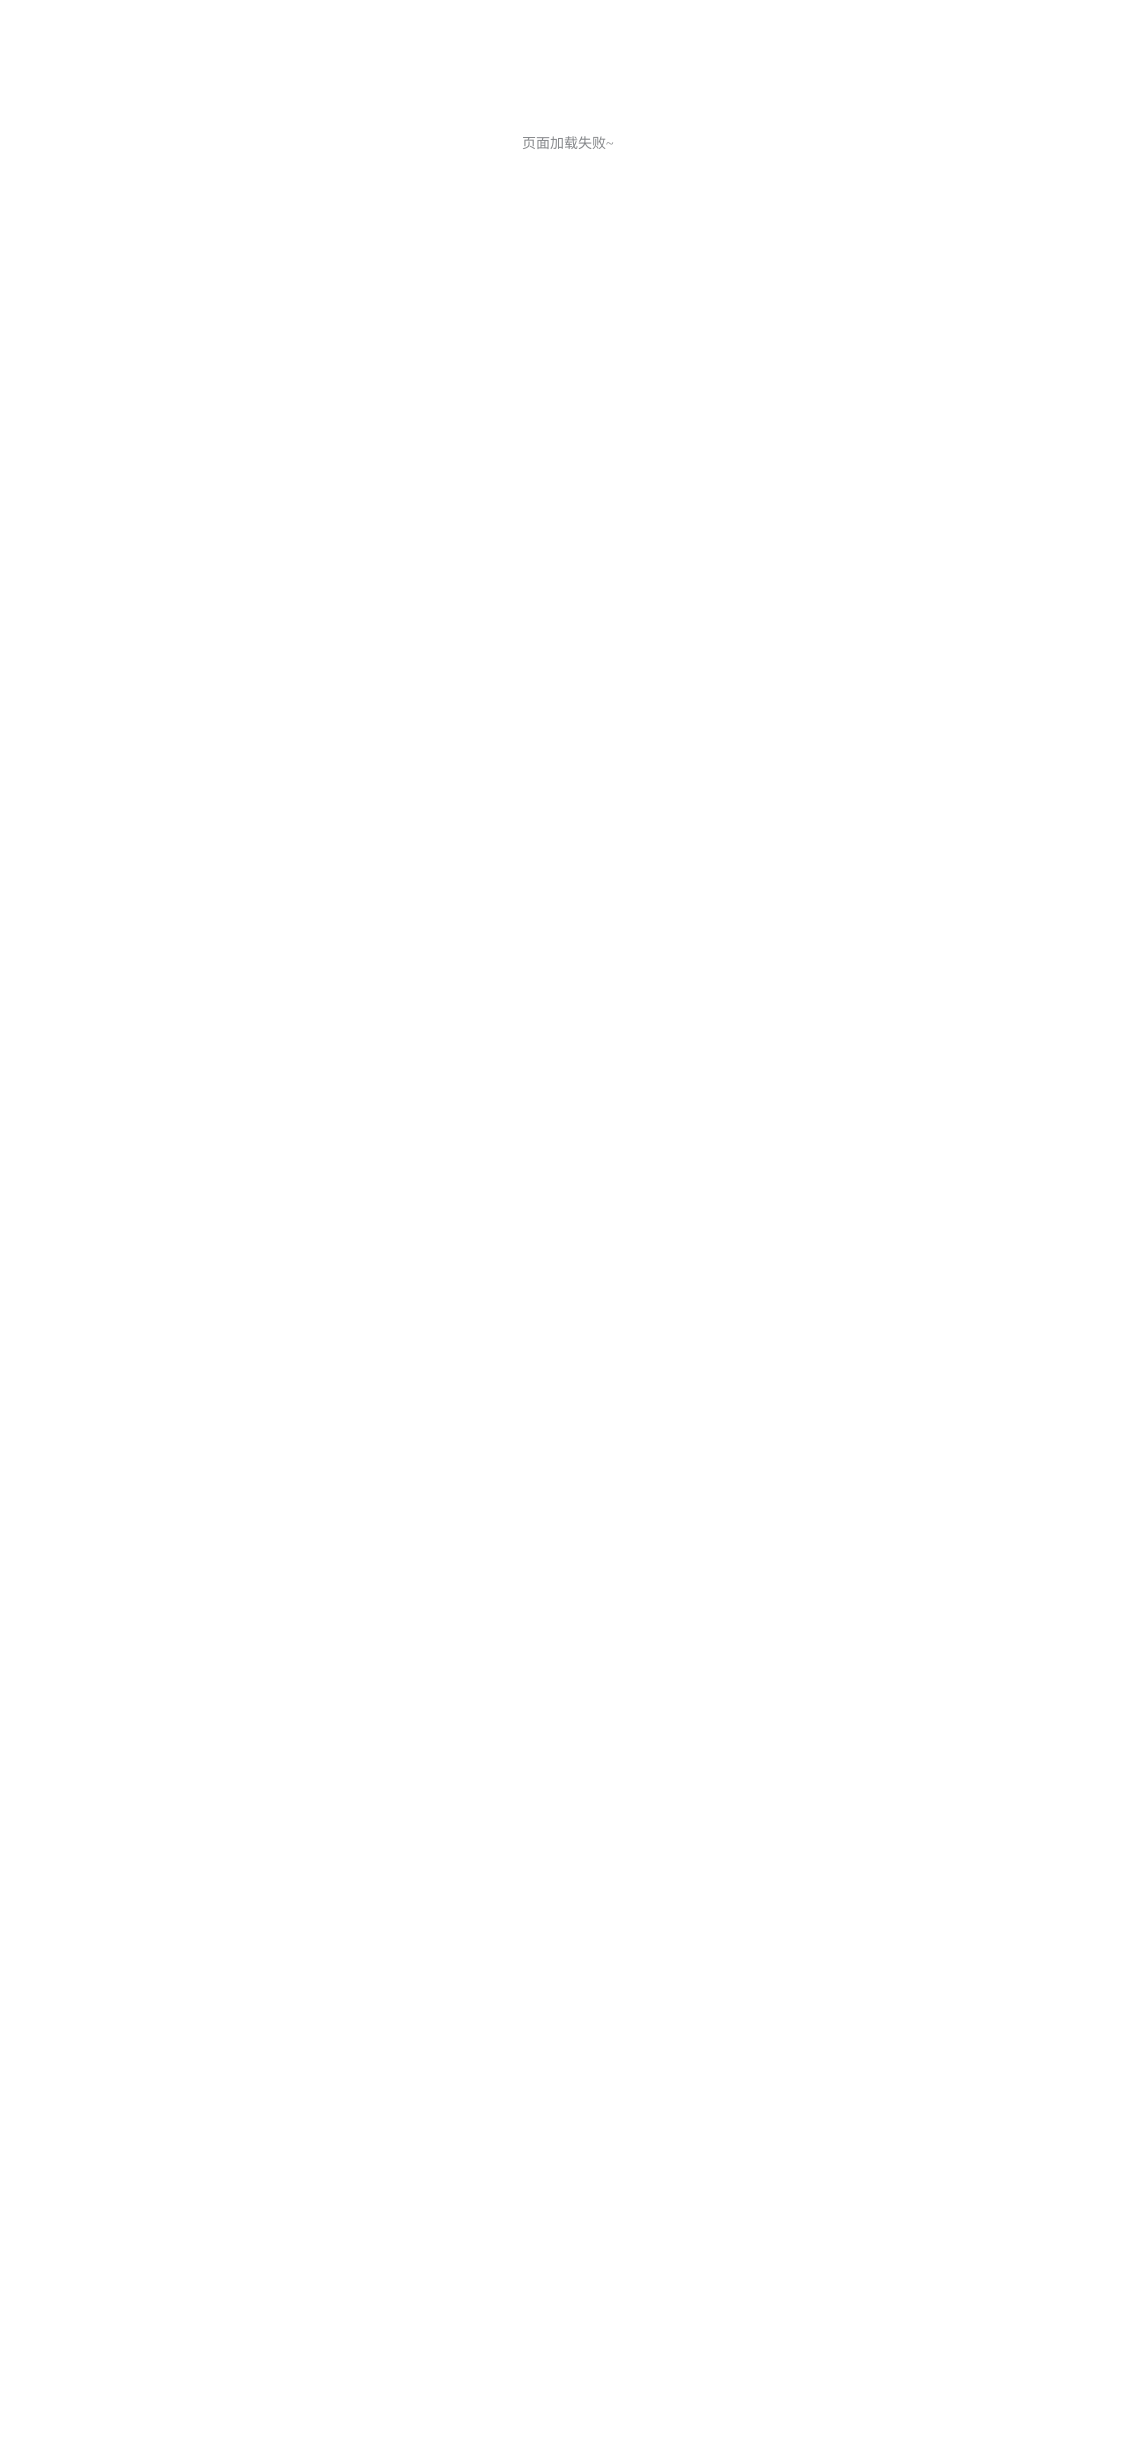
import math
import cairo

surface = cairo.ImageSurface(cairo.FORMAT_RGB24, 1135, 2453)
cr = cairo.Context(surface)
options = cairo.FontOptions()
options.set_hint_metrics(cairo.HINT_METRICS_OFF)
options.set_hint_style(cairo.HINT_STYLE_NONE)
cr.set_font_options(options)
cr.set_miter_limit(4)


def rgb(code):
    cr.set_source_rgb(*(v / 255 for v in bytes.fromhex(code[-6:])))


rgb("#ffffff")
cr.paint()
cr.select_font_face("Noto Sans CJK SC")
cr.set_font_size(14)
rgb("#85878a")
cr.move_to(522, 148)
cr.show_text("页面加载失败")
cr.select_font_face("Liberation Serif")
cr.move_to(606, 148)
cr.show_text("~")
surface.write_to_png("page.png")
